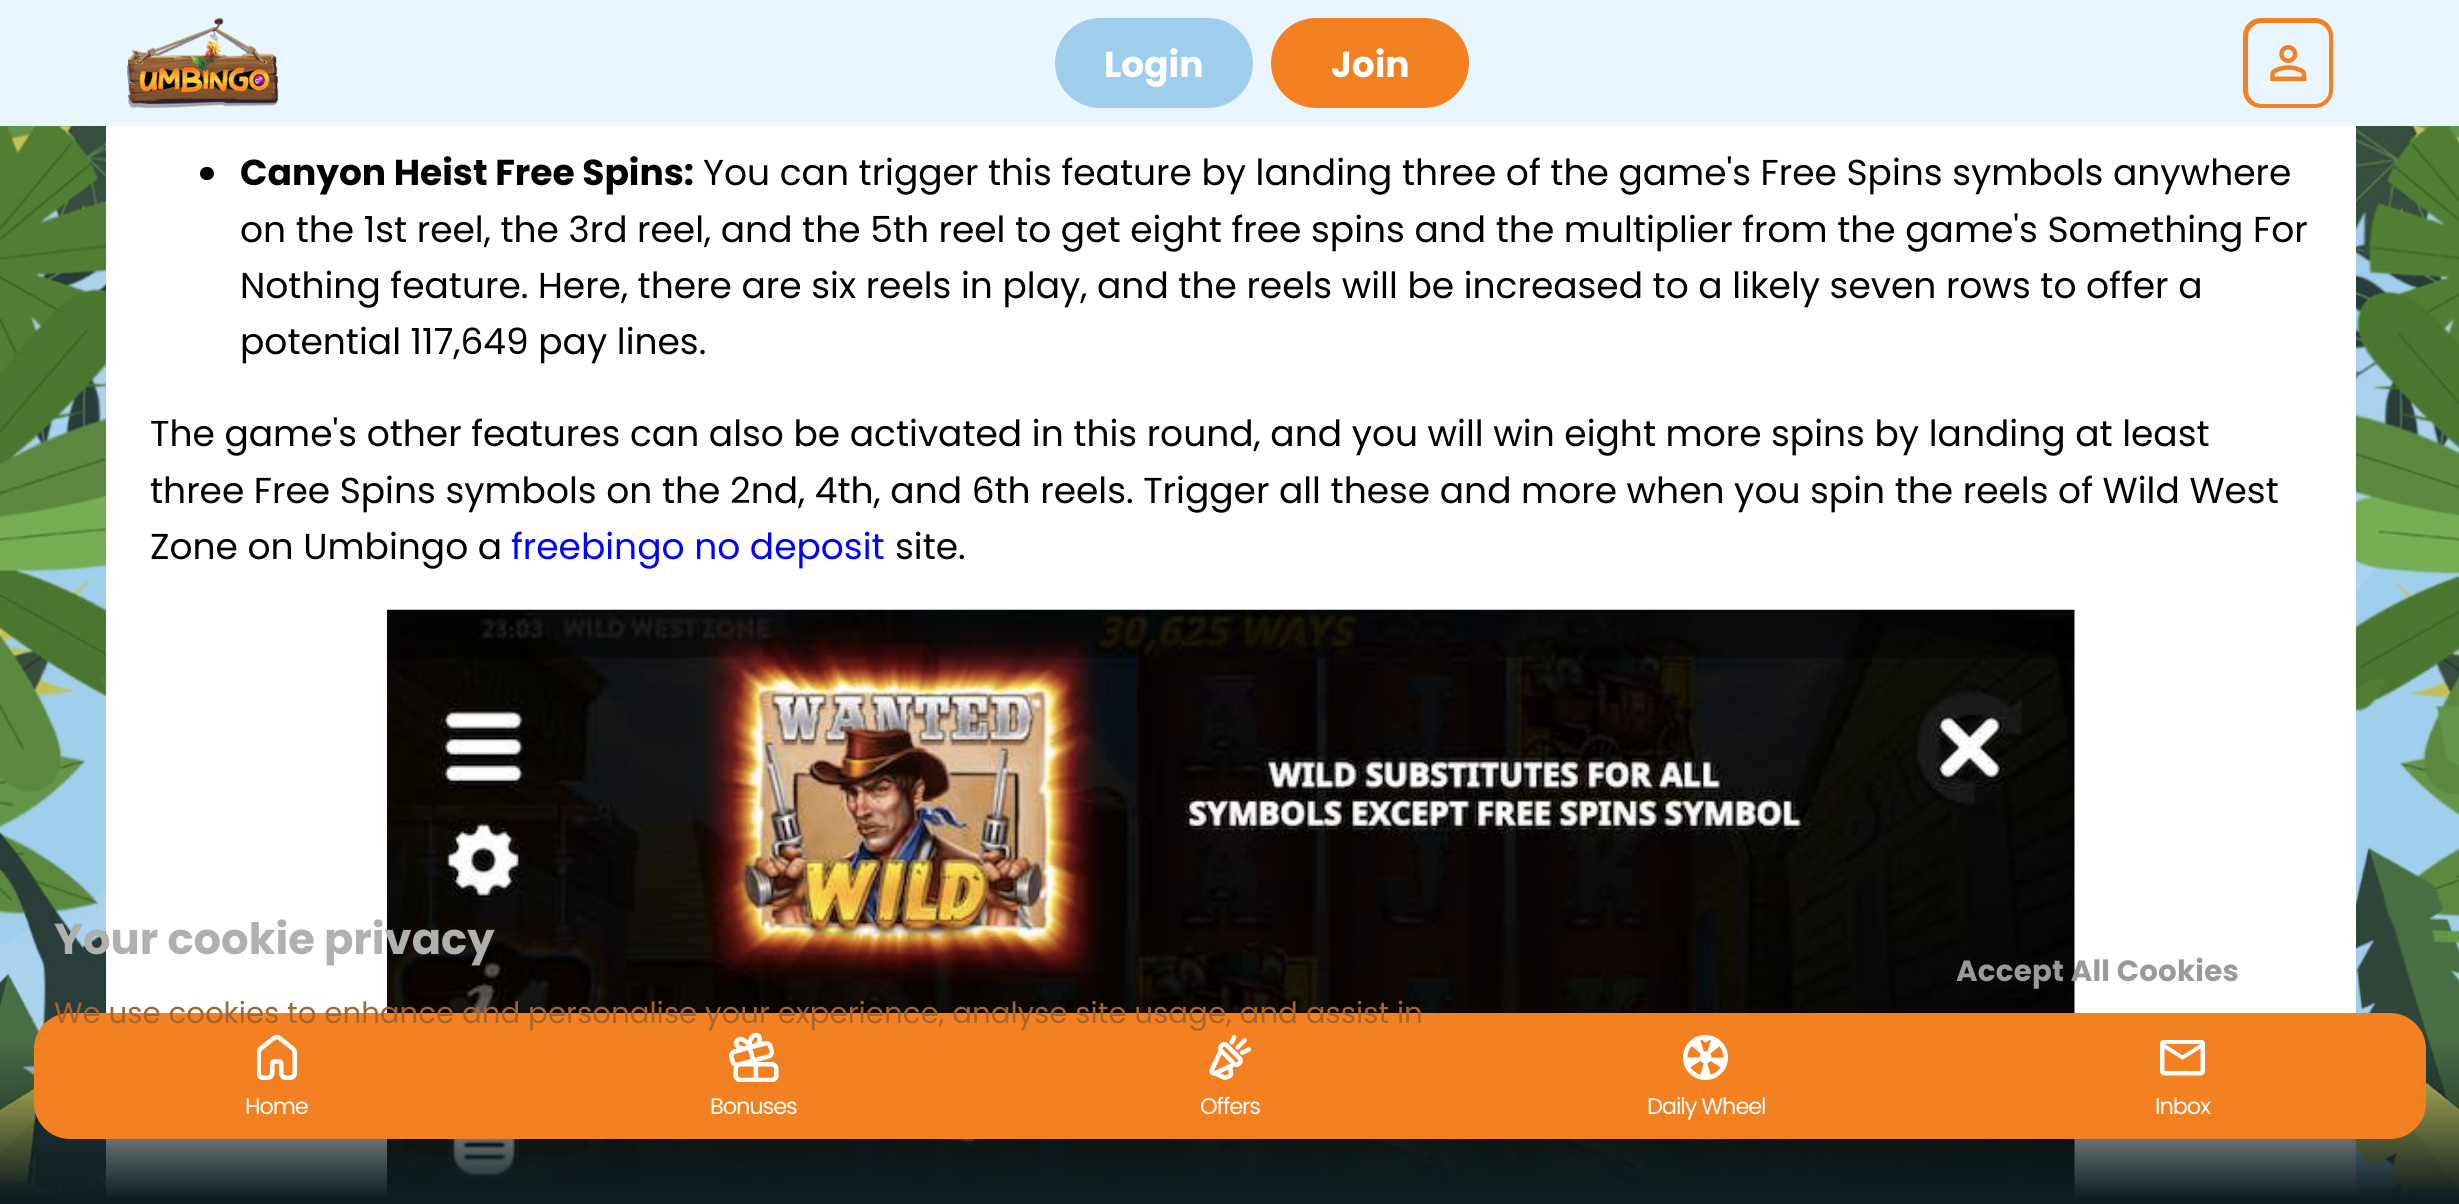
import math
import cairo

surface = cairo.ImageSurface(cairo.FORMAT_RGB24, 2459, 1204)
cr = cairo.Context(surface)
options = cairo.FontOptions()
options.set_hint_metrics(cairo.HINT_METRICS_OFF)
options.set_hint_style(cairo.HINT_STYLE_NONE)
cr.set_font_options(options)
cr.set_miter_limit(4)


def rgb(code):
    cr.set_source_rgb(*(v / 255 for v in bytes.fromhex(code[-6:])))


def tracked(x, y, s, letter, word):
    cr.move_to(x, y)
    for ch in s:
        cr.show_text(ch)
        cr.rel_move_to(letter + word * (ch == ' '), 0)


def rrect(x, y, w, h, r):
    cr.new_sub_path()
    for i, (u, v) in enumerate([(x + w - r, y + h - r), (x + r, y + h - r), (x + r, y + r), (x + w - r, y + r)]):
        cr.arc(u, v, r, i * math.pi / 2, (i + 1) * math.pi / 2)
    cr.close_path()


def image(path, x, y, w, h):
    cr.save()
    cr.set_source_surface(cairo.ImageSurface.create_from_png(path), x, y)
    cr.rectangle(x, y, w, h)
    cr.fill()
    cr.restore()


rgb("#ffffff")
cr.paint()
image("img/1.png", 0, 126, 2459, 1071)
rgb("#eaf6ff")
cr.rectangle(0, 0, 2459, 126)
cr.fill()
image("img/2.png", 127, 18, 152, 90)
rgb("#9fceed")
rrect(1055, 18, 198, 90, 45)
cr.fill()
rgb("#f38121")
rrect(1271, 18, 198, 90, 45)
cr.fill()
rrect(2243, 18, 90, 90, 18)
cr.fill()
rgb("#eaf6ff")
rrect(2248, 23, 81, 81, 14)
cr.fill()
image("img/3.png", 2270, 45, 37, 36)
rgb("#ffffff")
cr.rectangle(106, 126, 2250, 1071)
cr.fill()
rgb("#000000")
rrect(200, 167, 14, 13, 6.5)
cr.fill()
image("img/4.png", 387, 609, 1688, 588)
gradient = cairo.LinearGradient(1230, 1012, 1230, 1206)
gradient.add_color_stop_rgba(0.12, 0.059, 0.114, 0.129, 0)
gradient.add_color_stop_rgba(0.96, 0.059, 0.114, 0.129, 1)
cr.set_source(gradient)
cr.rectangle(0, 1039, 2459, 165)
cr.fill()
rgb("#f38121")
rrect(36.5, 1015.5, 2387, 121, 33.5)
cr.fill_preserve()
cr.set_line_width(5)
cr.stroke()
image("img/5.png", 257, 1035, 40, 45)
image("img/6.png", 729, 1033, 50, 49)
image("img/7.png", 1209, 1035, 42, 45)
image("img/8.png", 1683, 1035, 45, 45)
image("img/9.png", 2160, 1040, 45, 36)
cr.select_font_face("Poppins", cairo.FONT_SLANT_NORMAL, cairo.FONT_WEIGHT_BOLD)
cr.set_font_size(36)
rgb("#ffffff")
cr.move_to(1104, 77)
cr.show_text("Login")
cr.move_to(1331, 77)
cr.show_text("Join")
rgb("#000000")
cr.move_to(240, 185)
cr.show_text("Canyon Heist Free Spins:")
cr.select_font_face("Poppins")
for x, y, s in [
    (703, 185, "You can trigger this feature by landing three of the game's Free Spins symbols anywhere"),
    (240, 242, "on the 1st reel, the 3rd reel, and the 5th reel to get eight free spins and the multiplier from the game's Something For"),
    (240, 298, "Nothing feature. Here, there are six reels in play, and the reels will be increased to a likely seven rows to offer a"),
    (240, 354, "potential 117,649 pay lines."),
    (150, 446, "The game's other features can also be activated in this round, and you will win eight more spins by landing at least"),
    (150, 503, "three Free Spins symbols on the 2nd, 4th, and 6th reels. Trigger all these and more when you spin the reels of Wild West"),
    (150, 559, "Zone on Umbingo a"),
]:
    cr.move_to(x, y)
    cr.show_text(s)
rgb("#0000ff")
cr.move_to(511, 559)
cr.show_text("freebingo no deposit")
rgb("#000000")
cr.move_to(895, 559)
cr.show_text("site.")
cr.select_font_face("Poppins", cairo.FONT_SLANT_NORMAL, cairo.FONT_WEIGHT_BOLD)
cr.set_font_size(43.25)
rgb("#afb1b1")
cr.move_to(54, 954)
cr.show_text("Your cookie privacy")
cr.select_font_face("Poppins")
cr.set_font_size(29.25)
rgb("#a7642c")
cr.move_to(54, 1023)
cr.show_text("We use cookies to enhance and personalise your experience, analyse site usage, and assist in")
cr.select_font_face("Poppins", cairo.FONT_SLANT_NORMAL, cairo.FONT_WEIGHT_BOLD)
rgb("#9a9a9a")
tracked(1956, 981, "Accept All Cookies", 0.25, 0)
cr.select_font_face("Poppins")
cr.set_font_size(22.5)
rgb("#ffffff")
for x, y, s in [
    (245, 1114, "Home"),
    (710, 1114, "Bonuses"),
    (1200, 1114, "Offers"),
    (1647, 1114, "Daily Wheel"),
    (2155, 1114, "Inbox"),
]:
    tracked(x, y, s, -1.1, 0)
surface.write_to_png("page.png")
